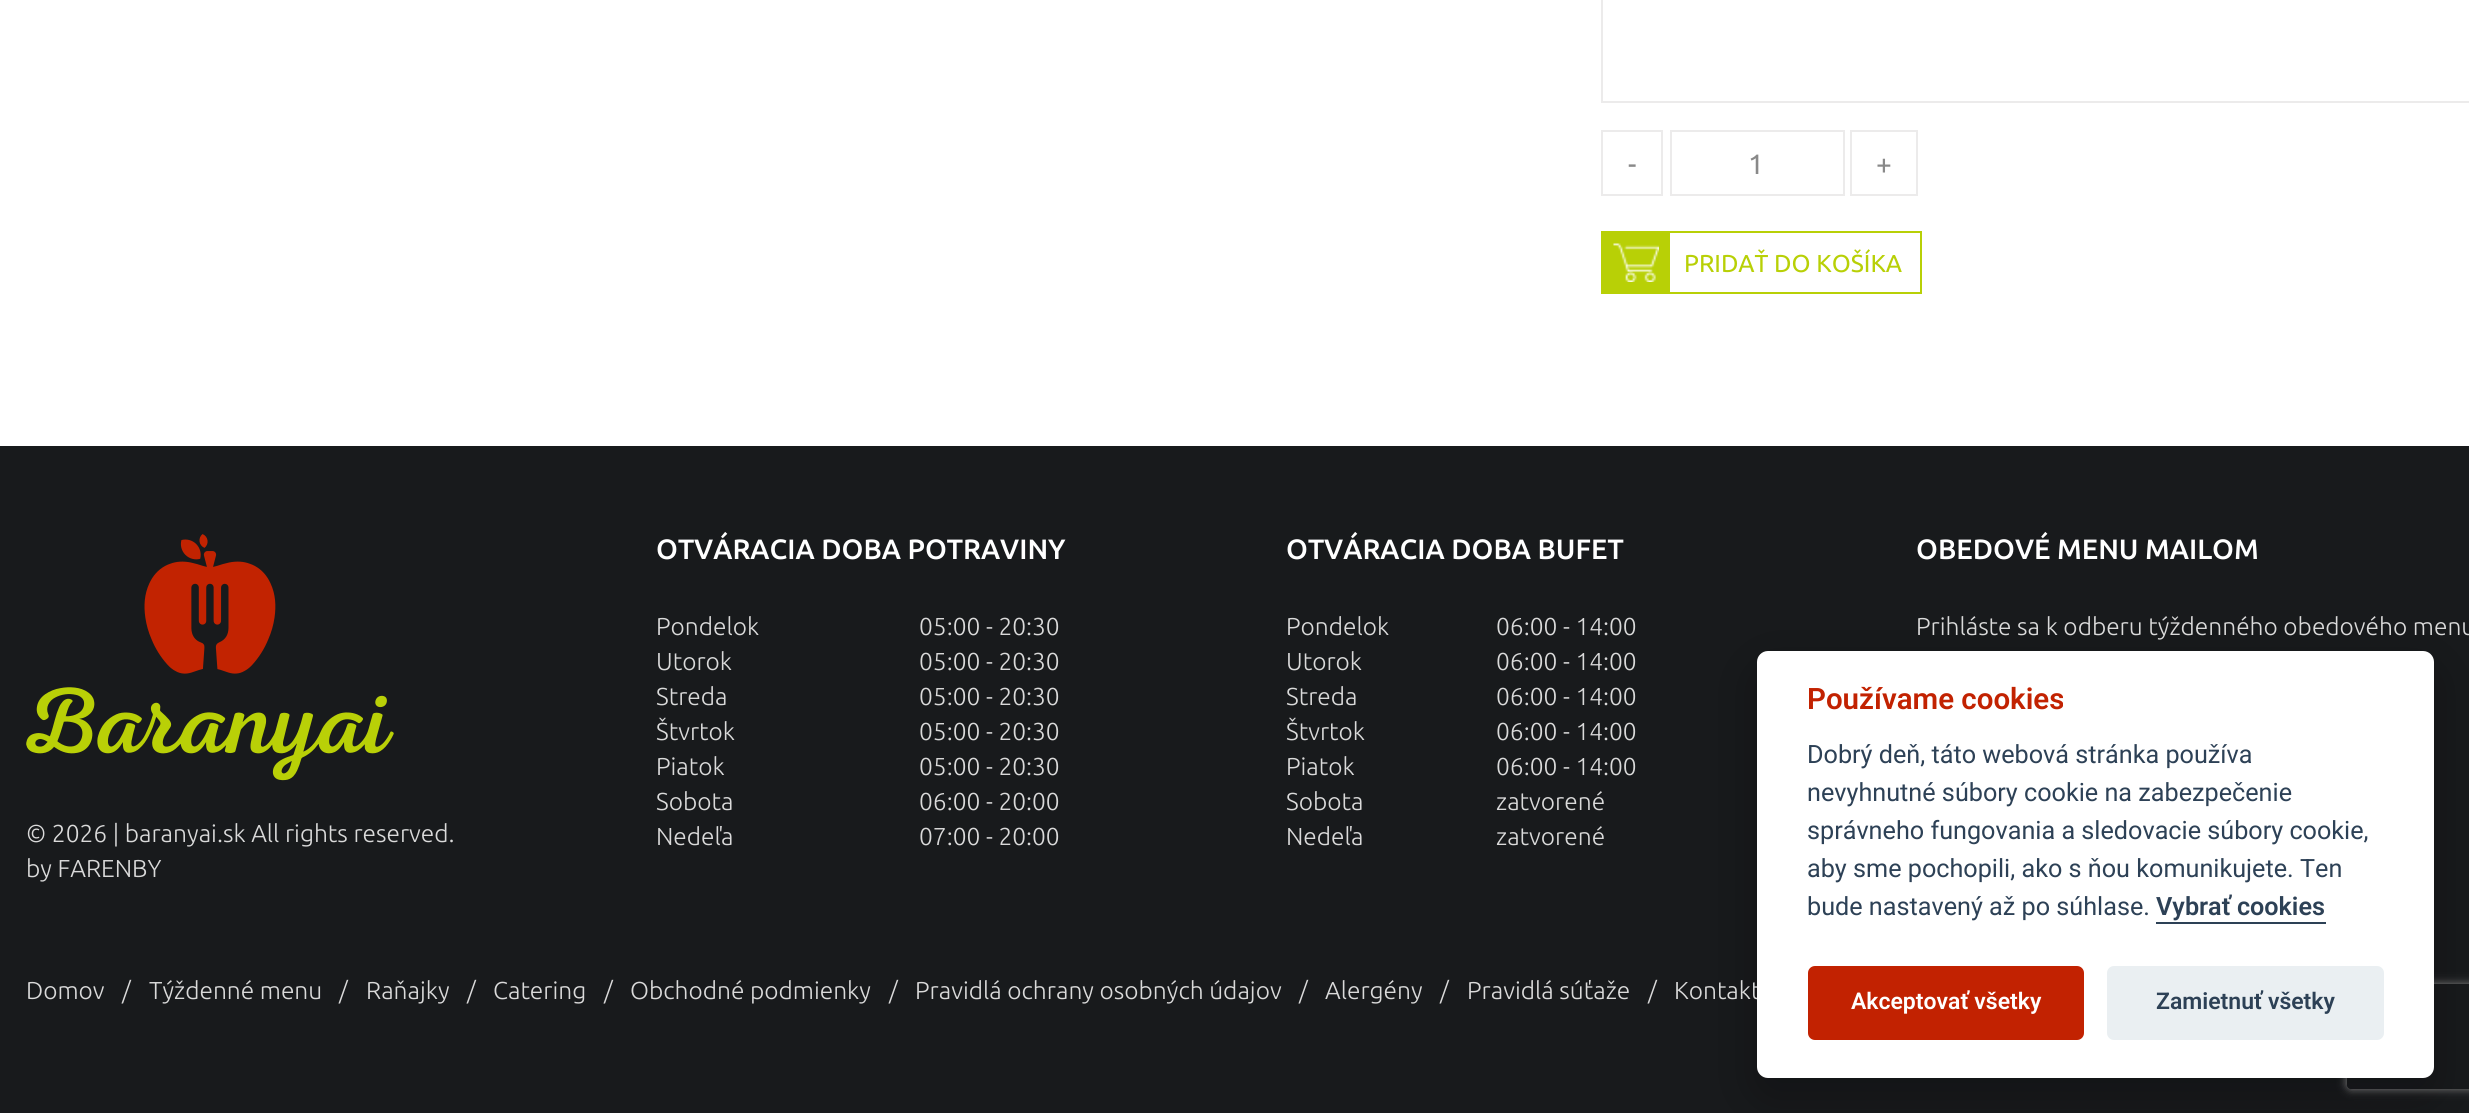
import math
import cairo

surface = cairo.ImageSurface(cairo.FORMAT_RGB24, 2469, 1113)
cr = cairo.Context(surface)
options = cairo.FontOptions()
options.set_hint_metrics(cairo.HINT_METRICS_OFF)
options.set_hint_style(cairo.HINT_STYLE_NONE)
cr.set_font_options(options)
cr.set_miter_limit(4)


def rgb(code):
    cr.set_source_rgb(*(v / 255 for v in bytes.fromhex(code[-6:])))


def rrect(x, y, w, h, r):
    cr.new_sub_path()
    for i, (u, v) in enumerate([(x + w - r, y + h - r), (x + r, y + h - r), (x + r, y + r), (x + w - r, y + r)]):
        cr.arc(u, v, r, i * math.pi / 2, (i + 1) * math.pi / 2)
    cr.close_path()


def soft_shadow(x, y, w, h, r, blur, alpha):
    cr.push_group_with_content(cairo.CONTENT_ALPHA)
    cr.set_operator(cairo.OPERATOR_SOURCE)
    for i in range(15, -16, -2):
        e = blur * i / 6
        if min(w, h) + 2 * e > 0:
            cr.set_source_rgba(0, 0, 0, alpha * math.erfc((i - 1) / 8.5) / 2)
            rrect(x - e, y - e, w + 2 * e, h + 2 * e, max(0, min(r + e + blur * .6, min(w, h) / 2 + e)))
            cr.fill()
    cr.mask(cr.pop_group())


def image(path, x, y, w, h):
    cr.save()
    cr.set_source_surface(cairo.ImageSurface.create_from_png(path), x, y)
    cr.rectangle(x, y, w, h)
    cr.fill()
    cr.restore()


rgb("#ffffff")
cr.paint()
cr.rectangle(1602, -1, 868, 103)
rgb("#ecebeb")
cr.stroke()
cr.rectangle(1602, 131, 60, 64)
cr.stroke()
cr.rectangle(1671, 131, 173, 64)
cr.stroke()
cr.rectangle(1851, 131, 66, 64)
cr.stroke()
cr.rectangle(1602, 232, 319, 61)
rgb("#b8d006")
cr.stroke()
cr.rectangle(1603, 233, 67, 59)
cr.fill()
image("img/1.png", 1613, 243, 46, 39)
rgb("#181a1c")
cr.rectangle(0, 446, 2469, 667)
cr.fill()
image("img/2.png", 26, 534, 368, 247)
rgb("#020203")
soft_shadow(1757, 669, 677, 427, 11, 26, 0.28)
cr.save()
cr.set_fill_rule(cairo.FILL_RULE_EVEN_ODD)
cr.new_path()
cr.move_to(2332, 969)
cr.line_to(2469, 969)
cr.line_to(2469, 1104)
cr.line_to(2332, 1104)
cr.close_path()
cr.move_to(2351, 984)
cr.line_to(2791, 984)
cr.curve_to(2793, 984, 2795, 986, 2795, 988)
cr.line_to(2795, 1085)
cr.curve_to(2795, 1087, 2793, 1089, 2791, 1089)
cr.line_to(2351, 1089)
cr.curve_to(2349, 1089, 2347, 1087, 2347, 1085)
cr.line_to(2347, 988)
cr.curve_to(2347, 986, 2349, 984, 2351, 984)
cr.close_path()
cr.clip()
rgb("#808080")
soft_shadow(2347, 984, 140, 105, 4, 4.5, 1)
cr.restore()
cr.select_font_face("Ubuntu")
cr.set_font_size(28)
rgb("#898989")
for x, y, s in [
    (1628, 174, "-"),
    (1748, 174, "1"),
    (1876, 174, "+"),
]:
    cr.move_to(x, y)
    cr.show_text(s)
cr.set_font_size(24.5)
rgb("#b8d006")
cr.move_to(1684, 272)
cr.show_text("PRIDAŤ DO KOŠÍKA")
cr.select_font_face("Ubuntu Medium")
cr.set_font_size(28)
rgb("#ffffff")
cr.move_to(656, 559)
cr.show_text("OTVÁRACIA DOBA POTRAVINY")
cr.select_font_face("Ubuntu Light")
cr.set_font_size(24.5)
rgb("#dadada")
for x, y, s in [
    (656, 635, "Pondelok"),
    (919, 635, "05:00 - 20:30"),
    (656, 670, "Utorok"),
    (919, 670, "05:00 - 20:30"),
    (656, 705, "Streda"),
    (919, 705, "05:00 - 20:30"),
    (656, 740, "Štvrtok"),
    (919, 740, "05:00 - 20:30"),
    (656, 775, "Piatok"),
    (919, 775, "05:00 - 20:30"),
    (656, 810, "Sobota"),
    (919, 810, "06:00 - 20:00"),
    (656, 845, "Nedeľa"),
    (919, 845, "07:00 - 20:00"),
]:
    cr.move_to(x, y)
    cr.show_text(s)
cr.select_font_face("Ubuntu Medium")
cr.set_font_size(28)
rgb("#ffffff")
cr.move_to(1286, 559)
cr.show_text("OTVÁRACIA DOBA BUFET")
cr.select_font_face("Ubuntu Light")
cr.set_font_size(24.5)
rgb("#dadada")
for x, y, s in [
    (1286, 635, "Pondelok"),
    (1496, 635, "06:00 - 14:00"),
    (1286, 670, "Utorok"),
    (1496, 670, "06:00 - 14:00"),
    (1286, 705, "Streda"),
    (1496, 705, "06:00 - 14:00"),
    (1286, 740, "Štvrtok"),
    (1496, 740, "06:00 - 14:00"),
    (1286, 775, "Piatok"),
    (1496, 775, "06:00 - 14:00"),
    (1286, 810, "Sobota"),
    (1496, 810, "zatvorené"),
    (1286, 845, "Nedeľa"),
    (1496, 845, "zatvorené"),
]:
    cr.move_to(x, y)
    cr.show_text(s)
cr.select_font_face("Ubuntu Medium")
cr.set_font_size(28)
rgb("#ffffff")
cr.move_to(1916, 559)
cr.show_text("OBEDOVÉ MENU MAILOM")
cr.select_font_face("Ubuntu Light")
cr.set_font_size(24.5)
rgb("#dadada")
for x, y, s in [
    (1916, 635, "Prihláste sa k odberu týždenného obedového menu"),
    (26, 842, "© 2026 | baranyai.sk All rights reserved."),
    (26, 877, "by FARENBY"),
    (26, 999, "Domov"),
    (122, 999, "/"),
    (149, 999, "Týždenné menu"),
    (339, 999, "/"),
    (366, 999, "Raňajky"),
    (467, 999, "/"),
    (493, 999, "Catering"),
    (604, 999, "/"),
    (630, 999, "Obchodné podmienky"),
    (889, 999, "/"),
    (915, 999, "Pravidlá ochrany osobných údajov"),
    (1299, 999, "/"),
    (1325, 999, "Alergény"),
    (1440, 999, "/"),
    (1467, 999, "Pravidlá súťaže"),
    (1648, 999, "/"),
    (1674, 999, "Kontakt"),
]:
    cr.move_to(x, y)
    cr.show_text(s)
rgb("#ffffff")
rrect(1757, 651, 677, 427, 11)
cr.fill()
cr.select_font_face("Roboto SemiBold")
cr.set_font_size(29.5)
rgb("#c22201")
cr.move_to(1807, 709)
cr.show_text("Používame cookies")
cr.select_font_face("Roboto")
cr.set_font_size(25.2)
rgb("#2d4156")
for x, y, s in [
    (1807, 763, "Dobrý deň, táto webová stránka používa"),
    (1807, 801, "nevyhnutné súbory cookie na zabezpečenie"),
    (1807, 839, "správneho fungovania a sledovacie súbory cookie,"),
    (1807, 877, "aby sme pochopili, ako s ňou komunikujete. Ten"),
    (1807, 915, "bude nastavený až po súhlase."),
]:
    cr.move_to(x, y)
    cr.show_text(s)
cr.select_font_face("Roboto SemiBold")
cr.move_to(2156, 915)
cr.show_text("Vybrať cookies")
cr.rectangle(2156, 922, 170, 2)
cr.fill()
rgb("#c22201")
rrect(1808, 966, 276, 74, 7)
cr.fill()
cr.set_font_size(23)
rgb("#ffffff")
cr.move_to(1851, 1009)
cr.show_text("Akceptovať všetky")
rgb("#eaeff2")
rrect(2107, 966, 277, 74, 7)
cr.fill()
rgb("#2d4156")
cr.move_to(2156, 1009)
cr.show_text("Zamietnuť všetky")
surface.write_to_png("page.png")
